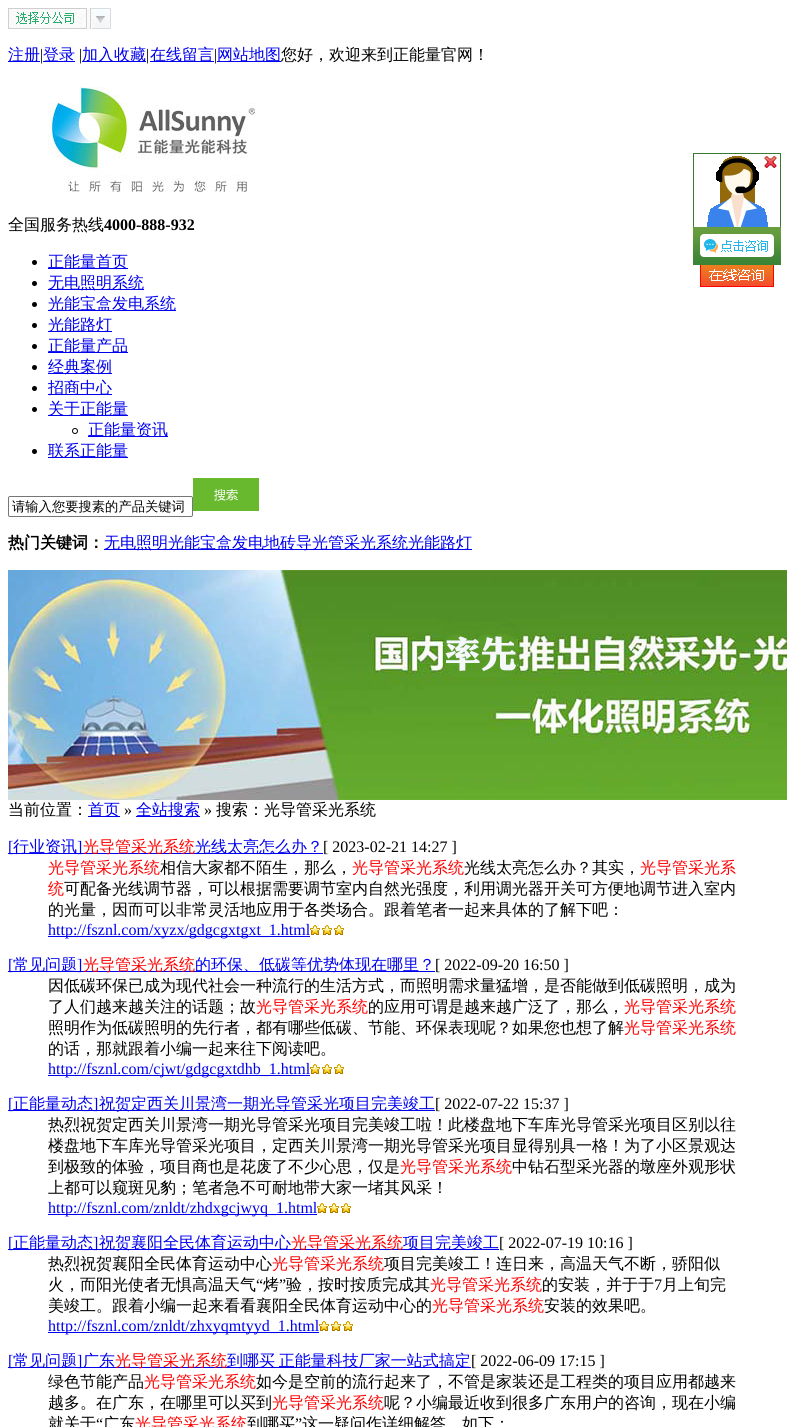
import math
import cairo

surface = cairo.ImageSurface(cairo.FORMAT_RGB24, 787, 1427)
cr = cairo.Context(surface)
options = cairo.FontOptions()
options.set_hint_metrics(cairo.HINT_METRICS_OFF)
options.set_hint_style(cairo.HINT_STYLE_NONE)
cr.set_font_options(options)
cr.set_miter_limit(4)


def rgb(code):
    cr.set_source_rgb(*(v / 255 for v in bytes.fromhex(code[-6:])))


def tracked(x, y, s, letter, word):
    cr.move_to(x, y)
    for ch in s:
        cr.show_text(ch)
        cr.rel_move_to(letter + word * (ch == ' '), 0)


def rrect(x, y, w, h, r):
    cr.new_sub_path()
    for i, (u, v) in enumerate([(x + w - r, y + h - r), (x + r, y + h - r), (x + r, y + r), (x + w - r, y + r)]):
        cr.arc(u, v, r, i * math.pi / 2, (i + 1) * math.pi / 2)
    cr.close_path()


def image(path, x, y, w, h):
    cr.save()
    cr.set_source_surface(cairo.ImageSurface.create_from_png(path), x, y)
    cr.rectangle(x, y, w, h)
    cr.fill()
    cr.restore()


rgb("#ffffff")
cr.paint()
image("img/1.png", 8, 8, 103, 21)
for x, y, w, h, color in [
    (8, 61, 32, 1, "#0000ee"),
    (43, 61, 32, 1, "#0000ee"),
    (82, 61, 64, 1, "#0000ee"),
    (150, 61, 64, 1, "#0000ee"),
    (217, 61, 64, 1, "#0000ee"),
]:
    rgb(color)
    cr.rectangle(x, y, w, h)
    cr.fill()
image("img/2.png", 48, 87, 208, 106)
image("img/3.png", 693, 153, 88, 134)
image("img/4.png", 764, 156, 13, 12)
rgb("#000000")
cr.arc(34.5, 262.5, 2.5, 0, 2 * math.pi)
cr.fill()
rgb("#0000ee")
cr.rectangle(48, 268, 80, 1)
cr.fill()
rgb("#000000")
cr.arc(34.5, 283.5, 2.5, 0, 2 * math.pi)
cr.fill()
rgb("#0000ee")
cr.rectangle(48, 289, 96, 1)
cr.fill()
rgb("#000000")
cr.arc(34.5, 304.5, 2.5, 0, 2 * math.pi)
cr.fill()
rgb("#0000ee")
cr.rectangle(48, 310, 128, 1)
cr.fill()
rgb("#000000")
cr.arc(34.5, 325.5, 2.5, 0, 2 * math.pi)
cr.fill()
rgb("#0000ee")
cr.rectangle(48, 331, 64, 1)
cr.fill()
rgb("#000000")
cr.arc(34.5, 346.5, 2.5, 0, 2 * math.pi)
cr.fill()
rgb("#0000ee")
cr.rectangle(48, 352, 80, 1)
cr.fill()
rgb("#000000")
cr.arc(34.5, 367.5, 2.5, 0, 2 * math.pi)
cr.fill()
rgb("#0000ee")
cr.rectangle(48, 373, 64, 1)
cr.fill()
rgb("#000000")
cr.arc(34.5, 388.5, 2.5, 0, 2 * math.pi)
cr.fill()
rgb("#0000ee")
cr.rectangle(48, 394, 64, 1)
cr.fill()
rgb("#000000")
cr.arc(34.5, 409.5, 2.5, 0, 2 * math.pi)
cr.fill()
rgb("#0000ee")
cr.rectangle(48, 415, 80, 1)
cr.fill()
cr.arc(75, 431, 2.5, 0, 2 * math.pi)
rgb("#000000")
cr.set_line_width(1)
cr.stroke()
rgb("#0000ee")
cr.rectangle(88, 436, 80, 1)
cr.fill()
rgb("#000000")
cr.arc(34.5, 451.5, 2.5, 0, 2 * math.pi)
cr.fill()
rgb("#0000ee")
cr.rectangle(48, 457, 80, 1)
cr.fill()
rrect(8.5, 496.5, 184, 20, 1.5)
rgb("#767676")
cr.stroke()
image("img/5.png", 193, 478, 66, 33)
rgb("#0000ee")
cr.rectangle(104, 549, 368, 1)
cr.fill()
image("img/6.png", 8, 570, 779, 230)
for x, y, w, h, color in [
    (88, 816, 32, 1, "#0000ee"),
    (136, 816, 64, 1, "#0000ee"),
    (8, 853, 315, 1, "#0000ee"),
    (48, 936, 262, 1, "#0000ee"),
]:
    rgb(color)
    cr.rectangle(x, y, w, h)
    cr.fill()
image("img/7.png", 310, 925, 34, 10)
cr.rectangle(8, 971, 427, 1)
cr.fill()
cr.rectangle(48, 1075, 262, 1)
cr.fill()
image("img/7.png", 310, 1064, 34, 10)
cr.rectangle(8, 1110, 427, 1)
cr.fill()
cr.rectangle(48, 1214, 269, 1)
cr.fill()
image("img/7.png", 317, 1203, 34, 10)
cr.rectangle(8, 1249, 491, 1)
cr.fill()
cr.rectangle(48, 1332, 271, 1)
cr.fill()
image("img/7.png", 319, 1321, 34, 10)
cr.rectangle(8, 1367, 463, 1)
cr.fill()
cr.select_font_face("WenQuanYi Zen Hei Medium")
cr.set_font_size(16)
cr.move_to(8, 60)
cr.show_text("注册")
cr.select_font_face("Liberation Serif")
rgb("#000000")
cr.move_to(40, 60)
cr.show_text("|")
cr.select_font_face("WenQuanYi Zen Hei Medium")
rgb("#0000ee")
cr.move_to(43, 60)
cr.show_text("登录")
cr.select_font_face("Liberation Serif")
rgb("#000000")
cr.move_to(79, 60)
cr.show_text("|")
cr.select_font_face("WenQuanYi Zen Hei Medium")
rgb("#0000ee")
cr.move_to(82, 60)
cr.show_text("加入收藏")
cr.select_font_face("Liberation Serif")
rgb("#000000")
cr.move_to(146, 60)
cr.show_text("|")
cr.select_font_face("WenQuanYi Zen Hei Medium")
rgb("#0000ee")
cr.move_to(150, 60)
cr.show_text("在线留言")
cr.select_font_face("Liberation Serif")
rgb("#000000")
cr.move_to(214, 60)
cr.show_text("|")
cr.select_font_face("WenQuanYi Zen Hei Medium")
rgb("#0000ee")
cr.move_to(217, 60)
cr.show_text("网站地图")
rgb("#000000")
cr.move_to(281, 60)
cr.show_text("您好，欢迎来到正能量官网！")
cr.move_to(8, 230)
cr.show_text("全国服务热线")
cr.select_font_face("Liberation Serif", cairo.FONT_SLANT_NORMAL, cairo.FONT_WEIGHT_BOLD)
cr.move_to(104, 230)
cr.show_text("4000-888-932")
cr.select_font_face("WenQuanYi Zen Hei Medium")
rgb("#0000ee")
for x, y, s in [
    (48, 267, "正能量首页"),
    (48, 288, "无电照明系统"),
    (48, 309, "光能宝盒发电系统"),
    (48, 330, "光能路灯"),
    (48, 351, "正能量产品"),
    (48, 372, "经典案例"),
    (48, 393, "招商中心"),
    (48, 414, "关于正能量"),
    (88, 435, "正能量资讯"),
    (48, 456, "联系正能量"),
]:
    cr.move_to(x, y)
    cr.show_text(s)
cr.set_font_size(13.3)
rgb("#000000")
cr.move_to(12, 511)
cr.show_text("请输入您要搜素的产品关键词")
cr.select_font_face("WenQuanYi Zen Hei", cairo.FONT_SLANT_NORMAL, cairo.FONT_WEIGHT_BOLD)
cr.set_font_size(16)
cr.move_to(8, 548)
cr.show_text("热门关键词：")
cr.select_font_face("WenQuanYi Zen Hei Medium")
rgb("#0000ee")
cr.move_to(104, 548)
cr.show_text("无电照明光能宝盒发电地砖导光管采光系统光能路灯")
rgb("#000000")
cr.move_to(8, 815)
cr.show_text("当前位置：")
rgb("#0000ee")
cr.move_to(88, 815)
cr.show_text("首页")
cr.select_font_face("Liberation Serif")
rgb("#000000")
cr.move_to(124, 815)
cr.show_text("»")
cr.select_font_face("WenQuanYi Zen Hei Medium")
rgb("#0000ee")
cr.move_to(136, 815)
cr.show_text("全站搜索")
cr.select_font_face("Liberation Serif")
rgb("#000000")
cr.move_to(204, 815)
cr.show_text("»")
cr.select_font_face("WenQuanYi Zen Hei Medium")
cr.move_to(216, 815)
cr.show_text("搜索：光导管采光系统")
cr.select_font_face("Liberation Serif")
rgb("#0000ee")
cr.move_to(8, 852)
cr.show_text("[")
cr.select_font_face("WenQuanYi Zen Hei Medium")
cr.move_to(13, 852)
cr.show_text("行业资讯")
cr.select_font_face("Liberation Serif")
cr.move_to(77, 852)
cr.show_text("]")
cr.select_font_face("WenQuanYi Zen Hei Medium")
rgb("#ff0000")
cr.move_to(83, 852)
cr.show_text("光导管采光系统")
rgb("#0000ee")
cr.move_to(195, 852)
cr.show_text("光线太亮怎么办？")
cr.select_font_face("Liberation Serif")
rgb("#000000")
cr.move_to(323, 852)
cr.show_text("[ 2023-02-21 14:27 ]")
cr.select_font_face("WenQuanYi Zen Hei Medium")
rgb("#ff0000")
cr.move_to(48, 873)
cr.show_text("光导管采光系统")
rgb("#000000")
cr.move_to(160, 873)
cr.show_text("相信大家都不陌生，那么，")
rgb("#ff0000")
cr.move_to(352, 873)
cr.show_text("光导管采光系统")
rgb("#000000")
cr.move_to(464, 873)
cr.show_text("光线太亮怎么办？其实，")
rgb("#ff0000")
cr.move_to(640, 873)
cr.show_text("光导管采光系")
cr.move_to(48, 894)
cr.show_text("统")
rgb("#000000")
cr.move_to(64, 894)
cr.show_text("可配备光线调节器，可以根据需要调节室内自然光强度，利用调光器开关可方便地调节进入室内")
cr.move_to(48, 915)
cr.show_text("的光量，因而可以非常灵活地应用于各类场合。跟着笔者一起来具体的了解下吧：")
cr.select_font_face("Liberation Serif")
rgb("#0000ee")
cr.move_to(48, 935)
cr.show_text("http://fsznl.com/xyzx/gdgcgxtgxt_1.html")
cr.move_to(8, 970)
cr.show_text("[")
cr.select_font_face("WenQuanYi Zen Hei Medium")
cr.move_to(13, 970)
cr.show_text("常见问题")
cr.select_font_face("Liberation Serif")
cr.move_to(77, 970)
cr.show_text("]")
cr.select_font_face("WenQuanYi Zen Hei Medium")
rgb("#ff0000")
cr.move_to(83, 970)
cr.show_text("光导管采光系统")
rgb("#0000ee")
cr.move_to(195, 970)
cr.show_text("的环保、低碳等优势体现在哪里？")
cr.select_font_face("Liberation Serif")
rgb("#000000")
cr.move_to(435, 970)
cr.show_text("[ 2022-09-20 16:50 ]")
cr.select_font_face("WenQuanYi Zen Hei Medium")
cr.move_to(48, 991)
cr.show_text("因低碳环保已成为现代社会一种流行的生活方式，而照明需求量猛增，是否能做到低碳照明，成为")
cr.move_to(48, 1012)
cr.show_text("了人们越来越关注的话题；故")
rgb("#ff0000")
cr.move_to(256, 1012)
cr.show_text("光导管采光系统")
rgb("#000000")
cr.move_to(368, 1012)
cr.show_text("的应用可谓是越来越广泛了，那么，")
rgb("#ff0000")
cr.move_to(624, 1012)
cr.show_text("光导管采光系统")
rgb("#000000")
cr.move_to(48, 1033)
cr.show_text("照明作为低碳照明的先行者，都有哪些低碳、节能、环保表现呢？如果您也想了解")
rgb("#ff0000")
cr.move_to(624, 1033)
cr.show_text("光导管采光系统")
rgb("#000000")
cr.move_to(48, 1054)
cr.show_text("的话，那就跟着小编一起来往下阅读吧。")
cr.select_font_face("Liberation Serif")
rgb("#0000ee")
cr.move_to(48, 1074)
cr.show_text("http://fsznl.com/cjwt/gdgcgxtdhb_1.html")
cr.move_to(8, 1109)
cr.show_text("[")
cr.select_font_face("WenQuanYi Zen Hei Medium")
cr.move_to(13, 1109)
cr.show_text("正能量动态")
cr.select_font_face("Liberation Serif")
cr.move_to(93, 1109)
cr.show_text("]")
cr.select_font_face("WenQuanYi Zen Hei Medium")
cr.move_to(99, 1109)
cr.show_text("祝贺定西关川景湾一期光导管采光项目完美竣工")
cr.select_font_face("Liberation Serif")
rgb("#000000")
cr.move_to(435, 1109)
cr.show_text("[ 2022-07-22 15:37 ]")
cr.select_font_face("WenQuanYi Zen Hei Medium")
for x, y, s in [
    (48, 1130, "热烈祝贺定西关川景湾一期光导管采光项目完美竣工啦！此楼盘地下车库光导管采光项目区别以往"),
    (48, 1151, "楼盘地下车库光导管采光项目，定西关川景湾一期光导管采光项目显得别具一格！为了小区景观达"),
    (48, 1172, "到极致的体验，项目商也是花废了不少心思，仅是"),
]:
    cr.move_to(x, y)
    cr.show_text(s)
rgb("#ff0000")
cr.move_to(400, 1172)
cr.show_text("光导管采光系统")
rgb("#000000")
cr.move_to(512, 1172)
cr.show_text("中钻石型采光器的墩座外观形状")
cr.move_to(48, 1193)
cr.show_text("上都可以窥斑见豹；笔者急不可耐地带大家一堵其风采！")
cr.select_font_face("Liberation Serif")
rgb("#0000ee")
cr.move_to(48, 1213)
cr.show_text("http://fsznl.com/znldt/zhdxgcjwyq_1.html")
cr.move_to(8, 1248)
cr.show_text("[")
cr.select_font_face("WenQuanYi Zen Hei Medium")
cr.move_to(13, 1248)
cr.show_text("正能量动态")
cr.select_font_face("Liberation Serif")
cr.move_to(93, 1248)
cr.show_text("]")
cr.select_font_face("WenQuanYi Zen Hei Medium")
cr.move_to(99, 1248)
cr.show_text("祝贺襄阳全民体育运动中心")
rgb("#ff0000")
cr.move_to(291, 1248)
cr.show_text("光导管采光系统")
rgb("#0000ee")
cr.move_to(403, 1248)
cr.show_text("项目完美竣工")
cr.select_font_face("Liberation Serif")
rgb("#000000")
cr.move_to(499, 1248)
cr.show_text("[ 2022-07-19 10:16 ]")
cr.select_font_face("WenQuanYi Zen Hei Medium")
cr.move_to(48, 1269)
cr.show_text("热烈祝贺襄阳全民体育运动中心")
rgb("#ff0000")
cr.move_to(272, 1269)
cr.show_text("光导管采光系统")
rgb("#000000")
cr.move_to(384, 1269)
cr.show_text("项目完美竣工！连日来，高温天气不断，骄阳似")
cr.move_to(48, 1290)
cr.show_text("火，而阳光使者无惧高温天气")
cr.select_font_face("Liberation Serif")
cr.move_to(256, 1290)
cr.show_text("“")
cr.select_font_face("WenQuanYi Zen Hei Medium")
cr.move_to(263, 1290)
cr.show_text("烤")
cr.select_font_face("Liberation Serif")
cr.move_to(279, 1290)
cr.show_text("”")
cr.select_font_face("WenQuanYi Zen Hei Medium")
cr.move_to(286, 1290)
cr.show_text("验，按时按质完成其")
rgb("#ff0000")
cr.move_to(430, 1290)
cr.show_text("光导管采光系统")
rgb("#000000")
cr.move_to(542, 1290)
cr.show_text("的安装，并于于")
cr.select_font_face("Liberation Serif")
cr.move_to(654, 1290)
cr.show_text("7")
cr.select_font_face("WenQuanYi Zen Hei Medium")
cr.move_to(662, 1290)
cr.show_text("月上旬完")
cr.move_to(48, 1311)
cr.show_text("美竣工。跟着小编一起来看看襄阳全民体育运动中心的")
rgb("#ff0000")
cr.move_to(432, 1311)
cr.show_text("光导管采光系统")
rgb("#000000")
cr.move_to(544, 1311)
cr.show_text("安装的效果吧。")
cr.select_font_face("Liberation Serif")
rgb("#0000ee")
cr.move_to(48, 1331)
cr.show_text("http://fsznl.com/znldt/zhxyqmtyyd_1.html")
cr.move_to(8, 1366)
cr.show_text("[")
cr.select_font_face("WenQuanYi Zen Hei Medium")
cr.move_to(13, 1366)
cr.show_text("常见问题")
cr.select_font_face("Liberation Serif")
cr.move_to(77, 1366)
cr.show_text("]")
cr.select_font_face("WenQuanYi Zen Hei Medium")
cr.move_to(83, 1366)
cr.show_text("广东")
rgb("#ff0000")
cr.move_to(115, 1366)
cr.show_text("光导管采光系统")
rgb("#0000ee")
tracked(227, 1366, "到哪买 正能量科技厂家一站式搞定", 0, -1)
cr.select_font_face("Liberation Serif")
rgb("#000000")
cr.move_to(471, 1366)
cr.show_text("[ 2022-06-09 17:15 ]")
cr.select_font_face("WenQuanYi Zen Hei Medium")
cr.move_to(48, 1387)
cr.show_text("绿色节能产品")
rgb("#ff0000")
cr.move_to(144, 1387)
cr.show_text("光导管采光系统")
rgb("#000000")
cr.move_to(256, 1387)
cr.show_text("如今是空前的流行起来了，不管是家装还是工程类的项目应用都越来")
cr.move_to(48, 1408)
cr.show_text("越多。在广东，在哪里可以买到")
rgb("#ff0000")
cr.move_to(272, 1408)
cr.show_text("光导管采光系统")
rgb("#000000")
cr.move_to(384, 1408)
cr.show_text("呢？小编最近收到很多广东用户的咨询，现在小编")
cr.move_to(48, 1429)
cr.show_text("就关于")
cr.select_font_face("Liberation Serif")
cr.move_to(96, 1429)
cr.show_text("“")
cr.select_font_face("WenQuanYi Zen Hei Medium")
cr.move_to(103, 1429)
cr.show_text("广东")
rgb("#ff0000")
cr.move_to(135, 1429)
cr.show_text("光导管采光系统")
rgb("#000000")
cr.move_to(247, 1429)
cr.show_text("到哪买")
cr.select_font_face("Liberation Serif")
cr.move_to(295, 1429)
cr.show_text("”")
cr.select_font_face("WenQuanYi Zen Hei Medium")
cr.move_to(302, 1429)
cr.show_text("这一疑问作详细解答，如下：")
surface.write_to_png("page.png")
